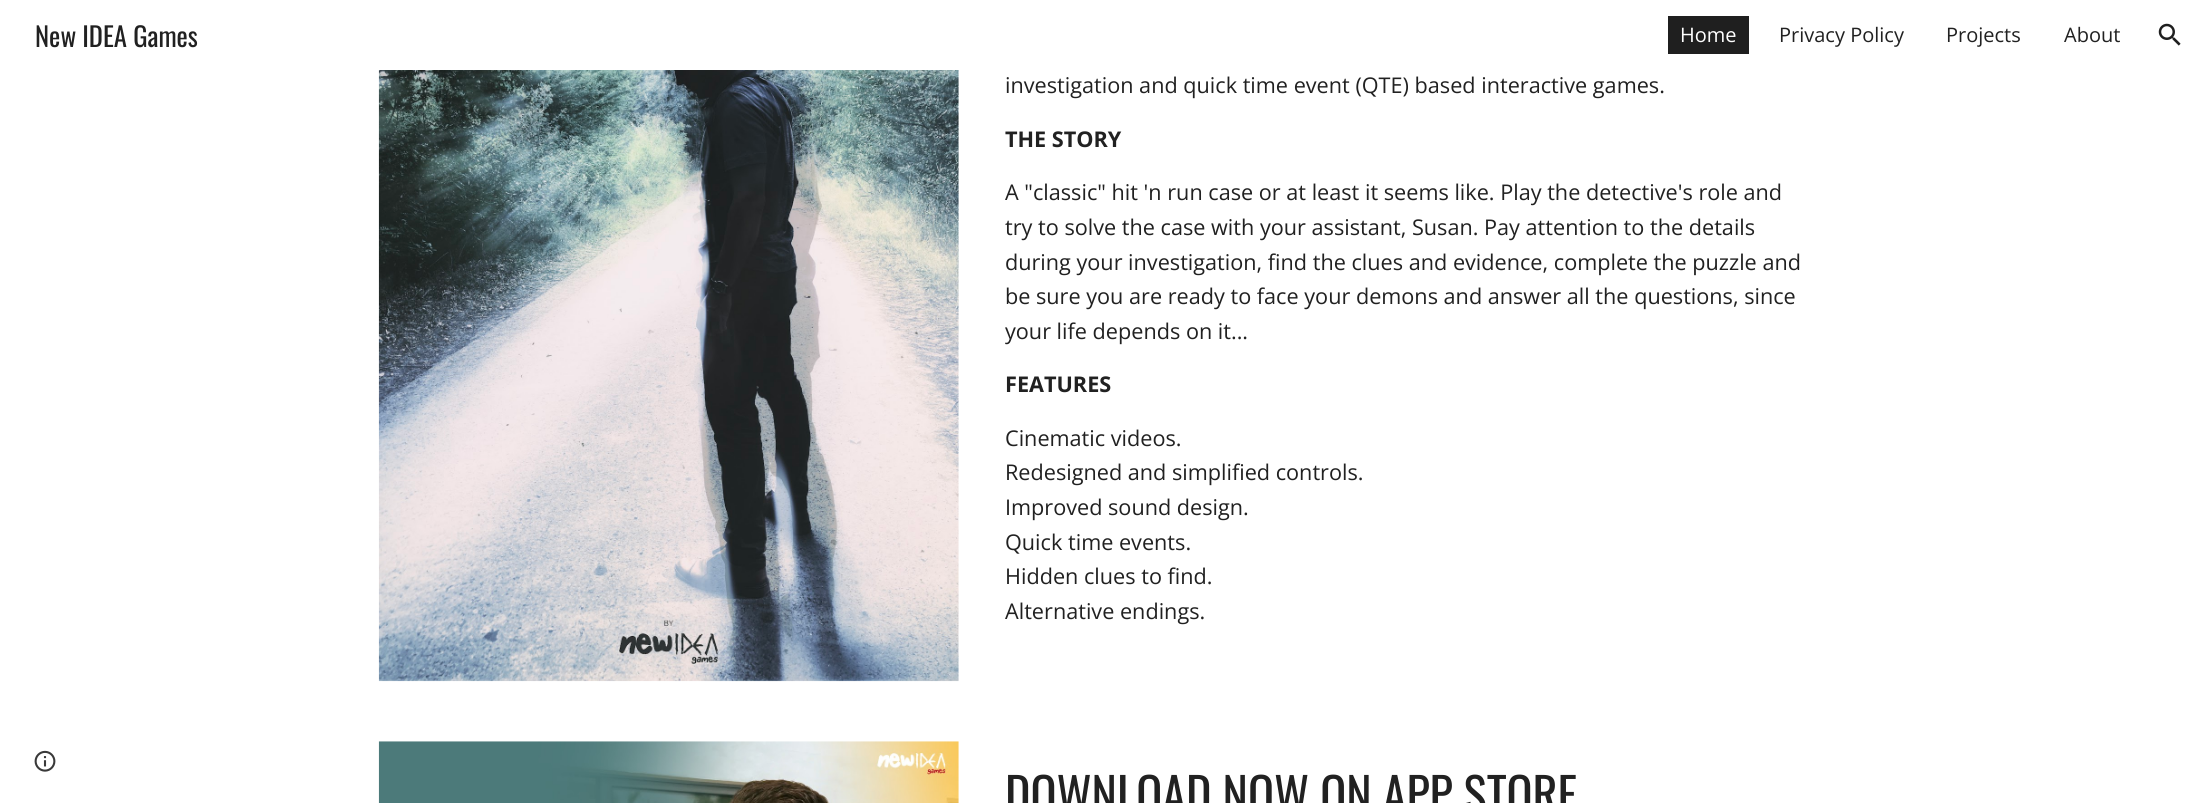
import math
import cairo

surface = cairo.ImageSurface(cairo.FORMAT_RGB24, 2200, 803)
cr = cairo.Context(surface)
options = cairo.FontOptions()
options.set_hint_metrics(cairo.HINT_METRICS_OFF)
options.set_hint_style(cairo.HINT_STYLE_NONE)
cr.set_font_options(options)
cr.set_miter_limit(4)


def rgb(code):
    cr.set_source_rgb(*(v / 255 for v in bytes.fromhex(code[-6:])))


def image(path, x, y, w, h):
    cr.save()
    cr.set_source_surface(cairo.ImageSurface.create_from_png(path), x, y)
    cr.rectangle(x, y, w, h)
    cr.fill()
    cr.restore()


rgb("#ffffff")
cr.paint()
rgb("#1f1f1f")
cr.rectangle(1668, 16, 81, 38)
cr.fill()
image("img/1.png", 2158, 23, 23, 23)
image("img/2.png", 34, 750, 22, 22)
image("img/3.png", 378, 70, 581, 612)
image("img/4.png", 378, 741, 581, 62)
cr.select_font_face("Oswald")
cr.set_font_size(26.75)
rgb("#212121")
cr.move_to(35, 47)
cr.show_text("New IDEA Games")
cr.select_font_face("Open Sans")
cr.set_font_size(20)
rgb("#ffffff")
cr.move_to(1680, 42)
cr.show_text("Home")
rgb("#212121")
for x, y, s in [
    (1779, 42, "Privacy Policy"),
    (1946, 42, "Projects"),
    (2064, 42, "About"),
]:
    cr.move_to(x, y)
    cr.show_text(s)
cr.set_font_size(21.65)
cr.move_to(1005, 93)
cr.show_text("investigation and quick time event (QTE) based interactive games.")
cr.select_font_face("Open Sans", cairo.FONT_SLANT_NORMAL, cairo.FONT_WEIGHT_BOLD)
cr.move_to(1005, 147)
cr.show_text("THE STORY")
cr.select_font_face("Open Sans")
for x, y, s in [
    (1005, 200, "A \"classic\" hit 'n run case or at least it seems like. Play the detective's role and"),
    (1005, 235, "try to solve the case with your assistant, Susan. Pay attention to the details"),
    (1005, 270, "during your investigation, find the clues and evidence, complete the puzzle and"),
    (1005, 304, "be sure you are ready to face your demons and answer all the questions, since"),
    (1005, 339, "your life depends on it..."),
]:
    cr.move_to(x, y)
    cr.show_text(s)
cr.select_font_face("Open Sans", cairo.FONT_SLANT_NORMAL, cairo.FONT_WEIGHT_BOLD)
cr.move_to(1005, 392)
cr.show_text("FEATURES")
cr.select_font_face("Open Sans")
for x, y, s in [
    (1005, 446, "Cinematic videos."),
    (1005, 480, "Redesigned and simplified controls."),
    (1005, 515, "Improved sound design."),
    (1005, 550, "Quick time events."),
    (1005, 584, "Hidden clues to find."),
    (1005, 619, "Alternative endings."),
]:
    cr.move_to(x, y)
    cr.show_text(s)
cr.select_font_face("Oswald")
cr.set_font_size(48.25)
cr.move_to(1005, 814)
cr.show_text("DOWNLOAD NOW ON APP STORE")
surface.write_to_png("page.png")
